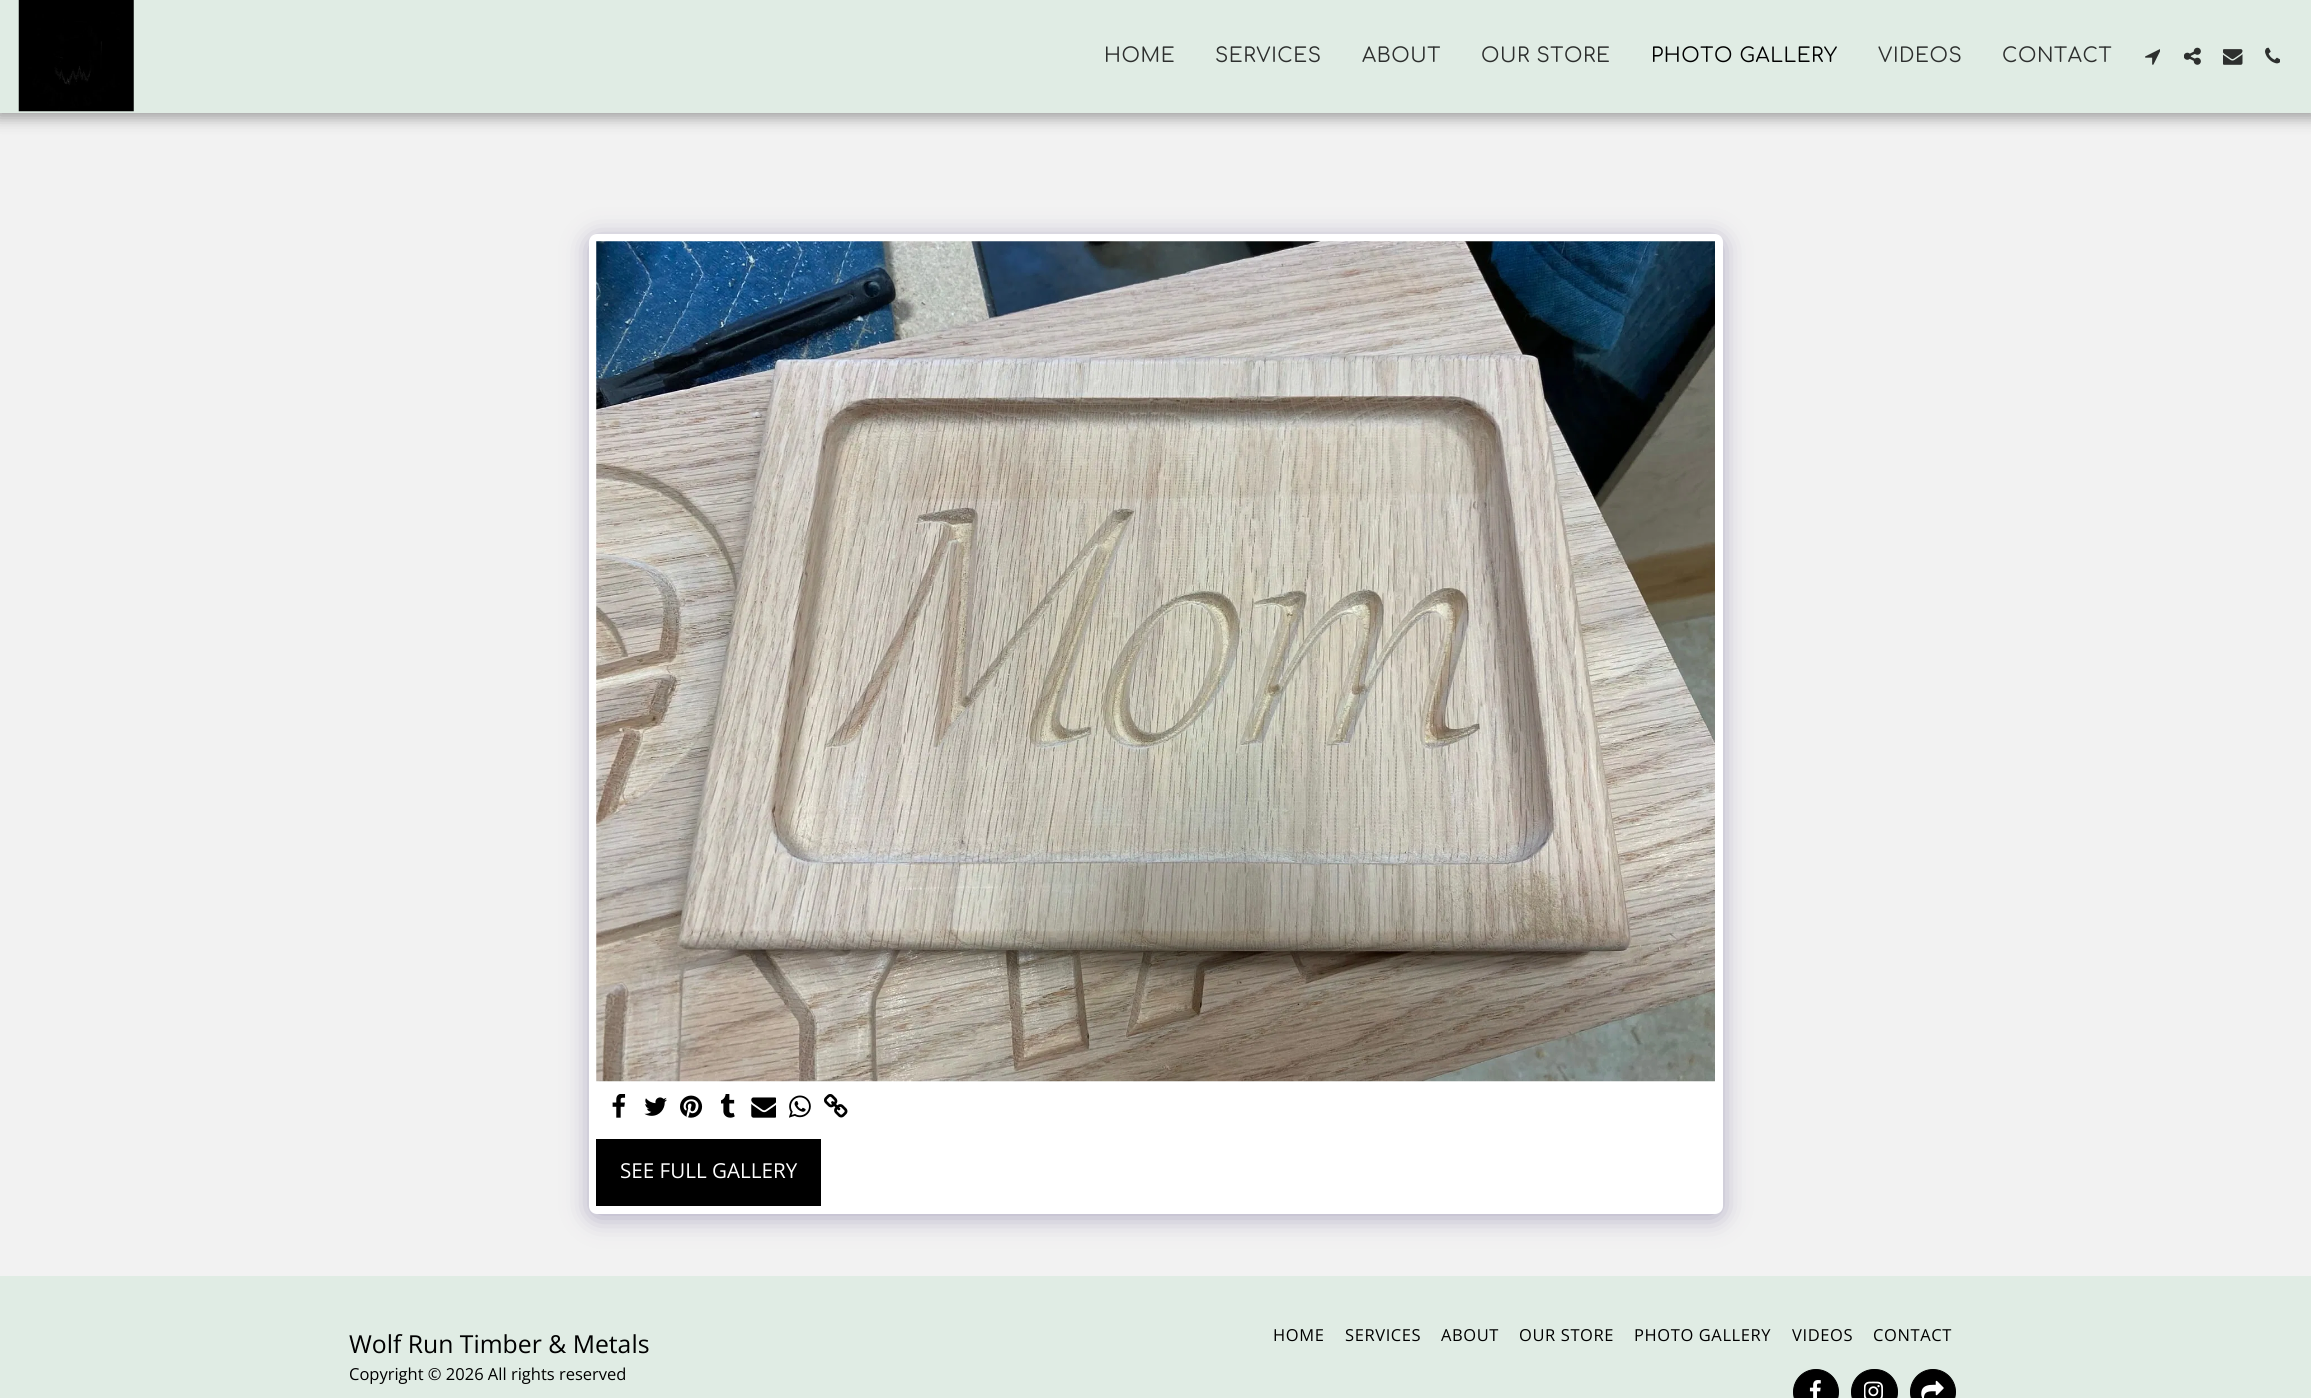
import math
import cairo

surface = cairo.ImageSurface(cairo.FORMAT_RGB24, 2311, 1398)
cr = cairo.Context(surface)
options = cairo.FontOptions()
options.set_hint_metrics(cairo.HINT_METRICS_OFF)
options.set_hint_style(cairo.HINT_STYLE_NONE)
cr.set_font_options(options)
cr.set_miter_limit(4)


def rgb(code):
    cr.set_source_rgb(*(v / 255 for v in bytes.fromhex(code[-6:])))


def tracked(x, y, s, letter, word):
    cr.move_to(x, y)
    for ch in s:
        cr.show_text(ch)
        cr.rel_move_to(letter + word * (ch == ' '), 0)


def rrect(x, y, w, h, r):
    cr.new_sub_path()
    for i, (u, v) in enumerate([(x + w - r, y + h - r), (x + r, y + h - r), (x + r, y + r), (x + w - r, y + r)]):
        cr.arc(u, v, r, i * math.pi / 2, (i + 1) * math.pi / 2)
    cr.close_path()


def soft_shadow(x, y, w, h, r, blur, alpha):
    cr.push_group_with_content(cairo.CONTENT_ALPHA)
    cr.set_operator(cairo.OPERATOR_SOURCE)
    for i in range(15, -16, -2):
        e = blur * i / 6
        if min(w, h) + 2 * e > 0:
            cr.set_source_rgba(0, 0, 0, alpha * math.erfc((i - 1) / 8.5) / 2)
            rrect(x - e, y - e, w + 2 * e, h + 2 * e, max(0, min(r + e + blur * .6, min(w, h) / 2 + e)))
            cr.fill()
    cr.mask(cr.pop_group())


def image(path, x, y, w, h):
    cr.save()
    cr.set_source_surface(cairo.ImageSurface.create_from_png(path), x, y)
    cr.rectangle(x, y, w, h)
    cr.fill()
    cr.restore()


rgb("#f2f2f2")
cr.paint()
rgb("#000000")
soft_shadow(-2, 0, 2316, 118, 0, 7.5, 0.35)
rgb("#e0ece4")
cr.rectangle(0, 0, 2311, 113)
cr.fill()
image("img/1.png", 18, 0, 116, 112)
image("img/2.png", 2145, 49, 15, 16)
image("img/3.png", 2184, 47, 17, 18)
image("img/4.png", 2223, 49, 20, 16)
image("img/5.png", 2265, 47, 15, 17)
rgb("#4d3f7a")
soft_shadow(589, 238, 1134, 980, 8, 12.5, 0.4)
rgb("#ffffff")
rrect(589, 234, 1134, 980, 8)
cr.fill()
image("img/6.png", 596, 241, 1119, 841)
image("img/7.png", 612, 1094, 14, 24)
image("img/8.png", 644, 1097, 23, 19)
image("img/9.png", 680, 1095, 23, 23)
image("img/10.png", 720, 1094, 15, 24)
image("img/11.png", 751, 1097, 25, 21)
image("img/12.png", 789, 1095, 22, 23)
image("img/13.png", 824, 1094, 24, 24)
rgb("#000000")
cr.rectangle(596, 1139, 225, 67)
cr.fill()
rgb("#e0ece4")
cr.rectangle(0, 1276, 2311, 122)
cr.fill()
rgb("#000000")
cr.arc(1816, 1392, 22.5, 0, 2 * math.pi)
cr.fill_preserve()
cr.set_line_width(1)
cr.stroke()
image("img/14.png", 1809, 1380, 12, 18)
rrect(1851.5, 1369.5, 46, 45, 22.5)
cr.fill_preserve()
cr.stroke()
image("img/15.png", 1864, 1381, 19, 17)
cr.arc(1933, 1392, 22.5, 0, 2 * math.pi)
cr.fill_preserve()
cr.stroke()
image("img/16.png", 1921, 1380, 23, 18)
cr.select_font_face("Comfortaa")
cr.set_font_size(20)
rgb("#2d2f2e")
for x, y, s in [
    (1104, 62, "HOME"),
    (1215, 62, "SERVICES"),
    (1362, 62, "ABOUT"),
    (1481, 62, "OUR STORE"),
]:
    tracked(x, y, s, 0.6, 0)
rgb("#000000")
tracked(1651, 62, "PHOTO GALLERY", 0.6, 0)
rgb("#2d2f2e")
tracked(1878, 62, "VIDEOS", 0.6, 0)
tracked(2002, 62, "CONTACT", 0.6, 0)
cr.select_font_face("Open Sans")
cr.set_font_size(20.6)
rgb("#ffffff")
cr.move_to(620, 1178)
cr.show_text("SEE FULL GALLERY")
cr.set_font_size(24.75)
rgb("#000000")
cr.move_to(349, 1353)
cr.show_text("Wolf Run Timber & Metals")
cr.set_font_size(16.5)
cr.move_to(349, 1380)
cr.show_text("Copyright © 2026 All rights reserved")
for x, y, s in [
    (1273, 1341, "HOME"),
    (1345, 1341, "SERVICES"),
    (1441, 1341, "ABOUT"),
    (1519, 1341, "OUR STORE"),
    (1634, 1341, "PHOTO GALLERY"),
    (1792, 1341, "VIDEOS"),
    (1873, 1341, "CONTACT"),
]:
    tracked(x, y, s, 0.6, 0)
surface.write_to_png("page.png")
